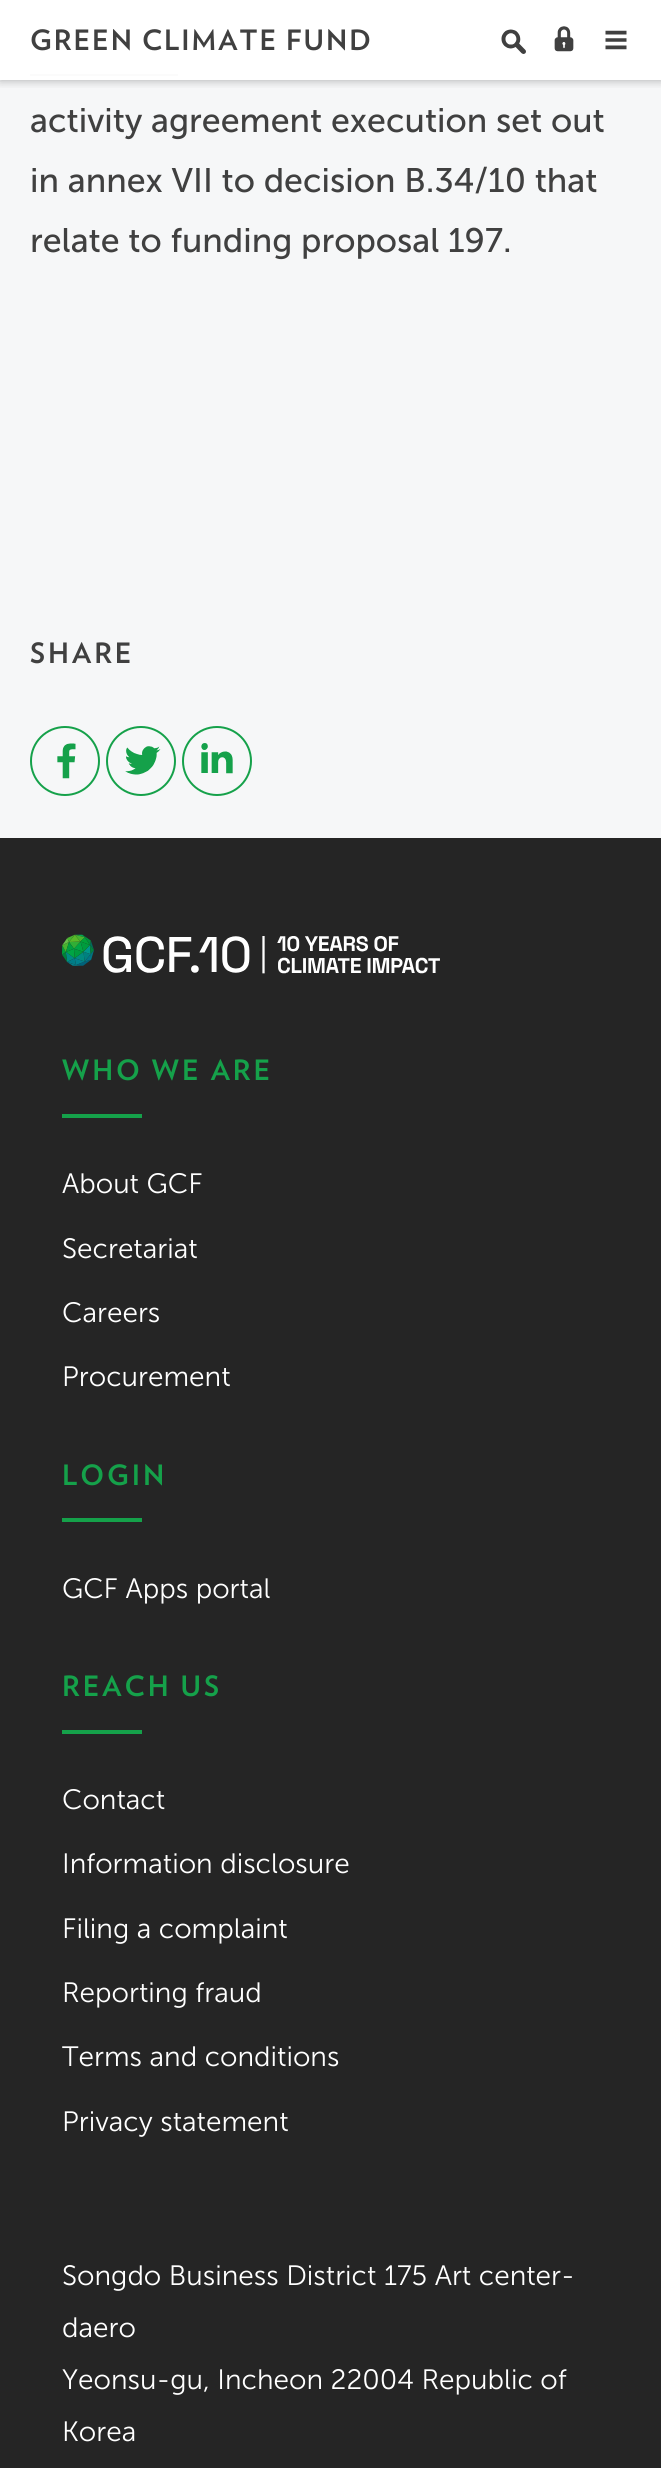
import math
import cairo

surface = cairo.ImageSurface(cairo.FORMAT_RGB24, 661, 2468)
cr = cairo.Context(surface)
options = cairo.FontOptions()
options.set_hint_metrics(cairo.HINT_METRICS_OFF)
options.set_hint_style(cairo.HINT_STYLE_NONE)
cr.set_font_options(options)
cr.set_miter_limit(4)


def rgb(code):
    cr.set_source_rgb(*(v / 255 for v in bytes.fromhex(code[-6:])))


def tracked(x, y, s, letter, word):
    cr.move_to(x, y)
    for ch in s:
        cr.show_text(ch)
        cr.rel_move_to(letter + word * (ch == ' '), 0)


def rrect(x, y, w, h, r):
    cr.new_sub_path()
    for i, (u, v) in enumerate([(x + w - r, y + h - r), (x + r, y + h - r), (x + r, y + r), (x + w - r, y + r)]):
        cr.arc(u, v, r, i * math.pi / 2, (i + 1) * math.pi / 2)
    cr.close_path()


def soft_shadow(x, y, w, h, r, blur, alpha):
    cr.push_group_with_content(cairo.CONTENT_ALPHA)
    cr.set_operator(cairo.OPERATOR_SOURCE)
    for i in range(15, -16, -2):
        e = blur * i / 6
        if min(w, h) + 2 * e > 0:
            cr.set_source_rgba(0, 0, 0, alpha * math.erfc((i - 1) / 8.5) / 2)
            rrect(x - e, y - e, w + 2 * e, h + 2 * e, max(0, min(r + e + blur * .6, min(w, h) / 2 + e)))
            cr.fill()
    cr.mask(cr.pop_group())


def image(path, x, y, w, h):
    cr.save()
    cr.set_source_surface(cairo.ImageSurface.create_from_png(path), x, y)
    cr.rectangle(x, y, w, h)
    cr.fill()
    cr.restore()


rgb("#f6f7f8")
cr.paint()
rgb("#ffffff")
cr.rectangle(0, 0, 661, 80)
cr.fill()
rgb("#fbfbfb")
cr.rectangle(30, 74, 148, 2)
cr.fill()
cr.save()
cr.rectangle(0, 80, 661, 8)
cr.clip()
rgb("#000000")
soft_shadow(0, 0, 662, 80, 0, 5, 0.32)
cr.restore()
image("img/1.png", 501, 29, 25, 25)
image("img/2.png", 554, 26, 20, 26)
image("img/3.png", 605, 30, 22, 20)
cr.arc(65, 761, 34, 0, 2 * math.pi)
rgb("#15a14a")
cr.stroke()
image("img/4.png", 57, 743, 19, 36)
cr.arc(141, 761, 34, 0, 2 * math.pi)
cr.stroke()
image("img/5.png", 125, 746, 36, 29)
cr.arc(217, 761, 34, 0, 2 * math.pi)
cr.stroke()
image("img/6.png", 201, 743, 32, 31)
rgb("#252525")
cr.rectangle(0, 838, 661, 1630)
cr.fill()
image("img/7.png", 62, 934, 378, 40)
for x, y, w, h, color in [
    (62, 1114, 80, 4, "#15a14a"),
    (62, 1518, 80, 4, "#15a14a"),
    (62, 1730, 80, 4, "#15a14a"),
]:
    rgb(color)
    cr.rectangle(x, y, w, h)
    cr.fill()
cr.select_font_face("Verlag", cairo.FONT_SLANT_NORMAL, cairo.FONT_WEIGHT_BOLD)
cr.set_font_size(28)
rgb("#404040")
tracked(30, 50, "GREEN CLIMATE FUND", 2, 0)
cr.select_font_face("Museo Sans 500")
cr.set_font_size(34)
for x, y, s in [
    (30, 132, "activity agreement execution set out"),
    (30, 192, "in annex VII to decision B.34/10 that"),
    (30, 252, "relate to funding proposal 197."),
]:
    cr.move_to(x, y)
    cr.show_text(s)
cr.select_font_face("Verlag", cairo.FONT_SLANT_NORMAL, cairo.FONT_WEIGHT_BOLD)
cr.set_font_size(28)
tracked(30, 663, "SHARE", 3, 0)
rgb("#15a14a")
tracked(62, 1080, "WHO WE ARE", 3, 0)
cr.select_font_face("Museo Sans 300 Light")
rgb("#ffffff")
for x, y, s in [
    (62, 1193, "About GCF"),
    (62, 1258, "Secretariat"),
    (62, 1322, "Careers"),
    (62, 1386, "Procurement"),
]:
    cr.move_to(x, y)
    cr.show_text(s)
cr.select_font_face("Verlag", cairo.FONT_SLANT_NORMAL, cairo.FONT_WEIGHT_BOLD)
rgb("#15a14a")
tracked(62, 1485, "LOGIN", 3, 0)
cr.select_font_face("Museo Sans 300 Light")
rgb("#ffffff")
cr.move_to(62, 1598)
cr.show_text("GCF Apps portal")
cr.select_font_face("Verlag", cairo.FONT_SLANT_NORMAL, cairo.FONT_WEIGHT_BOLD)
rgb("#15a14a")
tracked(62, 1696, "REACH US", 3, 0)
cr.select_font_face("Museo Sans 300 Light")
rgb("#ffffff")
for x, y, s in [
    (62, 1809, "Contact"),
    (62, 1873, "Information disclosure"),
    (62, 1938, "Filing a complaint"),
    (62, 2002, "Reporting fraud"),
    (62, 2066, "Terms and conditions"),
    (62, 2131, "Privacy statement"),
    (62, 2285, "Songdo Business District 175 Art center-"),
    (62, 2337, "daero"),
    (62, 2389, "Yeonsu-gu, Incheon 22004 Republic of"),
    (62, 2441, "Korea"),
]:
    cr.move_to(x, y)
    cr.show_text(s)
surface.write_to_png("page.png")
